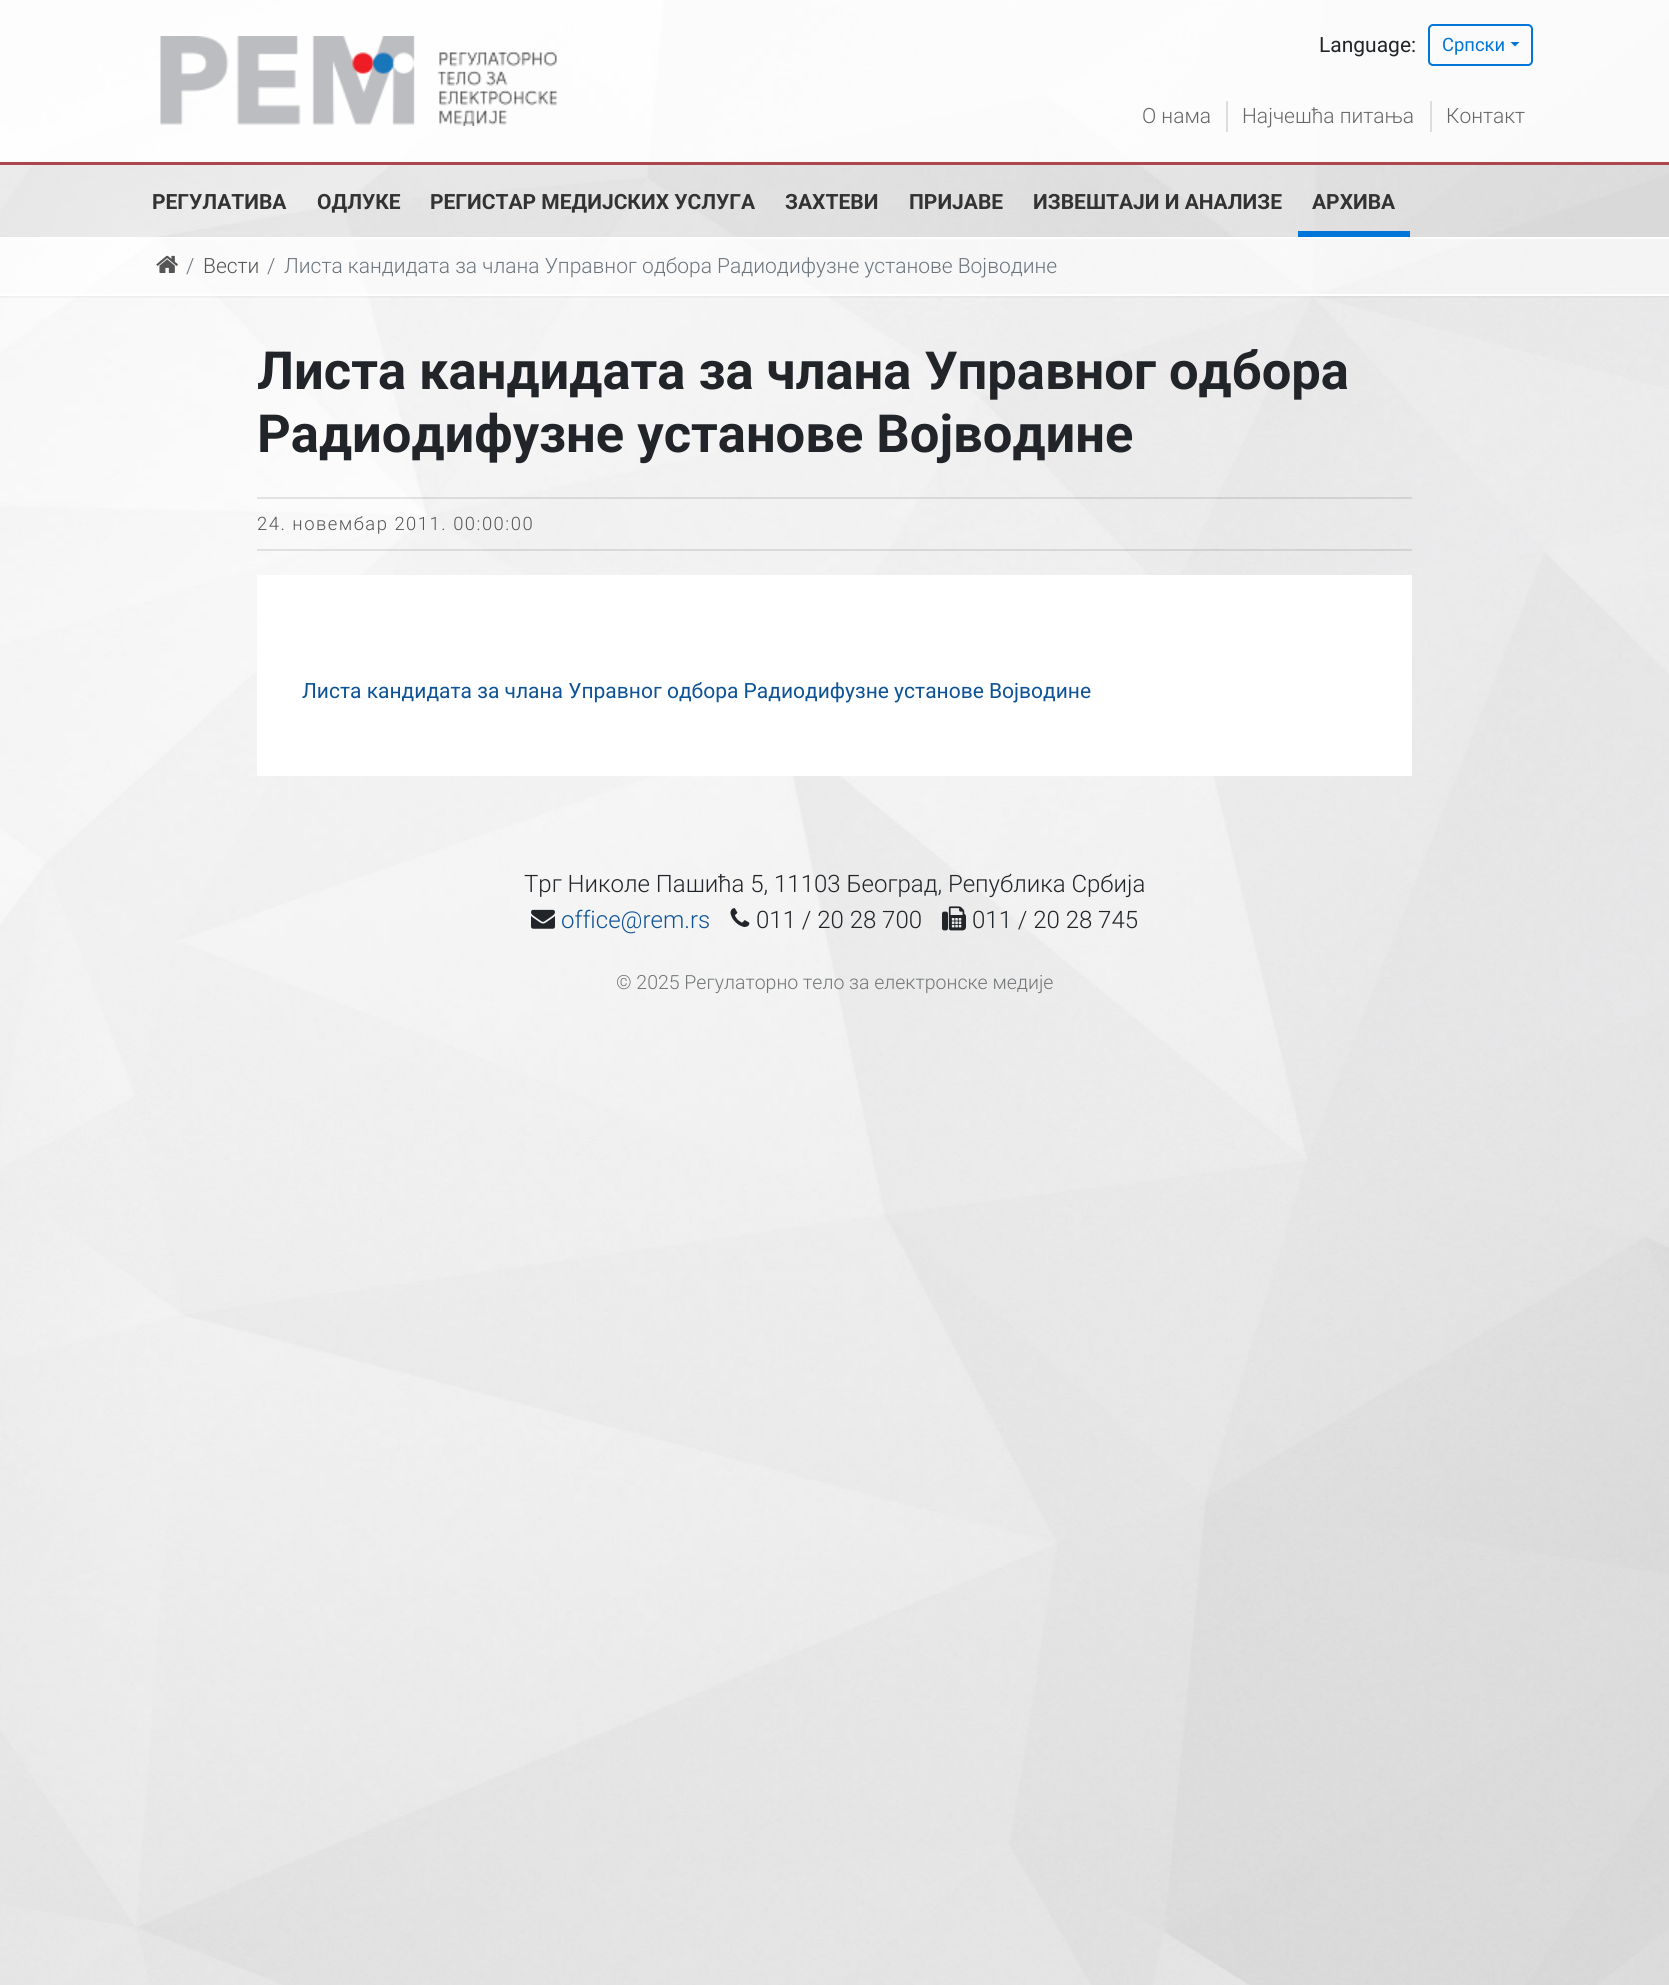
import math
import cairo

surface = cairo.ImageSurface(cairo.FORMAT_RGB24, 1669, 1985)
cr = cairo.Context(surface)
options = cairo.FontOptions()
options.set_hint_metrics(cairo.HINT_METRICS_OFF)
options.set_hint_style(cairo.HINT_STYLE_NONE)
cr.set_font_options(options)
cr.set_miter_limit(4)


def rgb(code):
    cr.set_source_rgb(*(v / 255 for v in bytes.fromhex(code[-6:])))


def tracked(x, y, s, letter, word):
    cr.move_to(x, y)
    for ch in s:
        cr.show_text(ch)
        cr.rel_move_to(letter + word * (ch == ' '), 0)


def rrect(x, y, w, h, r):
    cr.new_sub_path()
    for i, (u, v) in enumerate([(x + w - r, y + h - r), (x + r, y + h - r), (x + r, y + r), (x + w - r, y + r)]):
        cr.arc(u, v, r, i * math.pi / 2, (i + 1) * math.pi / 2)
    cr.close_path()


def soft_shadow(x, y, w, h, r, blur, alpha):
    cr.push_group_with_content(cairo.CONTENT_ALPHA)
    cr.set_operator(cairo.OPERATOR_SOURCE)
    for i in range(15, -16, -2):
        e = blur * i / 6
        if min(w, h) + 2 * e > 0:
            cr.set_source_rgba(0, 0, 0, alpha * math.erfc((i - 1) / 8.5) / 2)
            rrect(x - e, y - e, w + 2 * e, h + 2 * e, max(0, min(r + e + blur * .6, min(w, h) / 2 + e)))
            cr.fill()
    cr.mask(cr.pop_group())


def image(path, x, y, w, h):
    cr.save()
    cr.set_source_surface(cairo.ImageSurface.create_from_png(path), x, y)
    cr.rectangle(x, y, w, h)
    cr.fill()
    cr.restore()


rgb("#ffffff")
cr.paint()
image("img/1.png", 0, 0, 1669, 1985)
cr.set_source_rgba(1, 1, 1, 0.75)
cr.rectangle(0, 0, 1669, 162)
cr.fill()
image("img/2.png", 160, 36, 397, 90)
rrect(1429, 25, 103, 40, 4)
rgb("#0275d8")
cr.stroke()
cr.new_path()
cr.move_to(1510.5, 42)
cr.line_to(1519.5, 42)
cr.line_to(1515, 46.5)
cr.close_path()
cr.fill()
rgb("#dddddd")
cr.rectangle(1226, 101, 2, 31)
cr.rectangle(1430, 101, 2, 31)
cr.fill()
cr.set_source_rgba(0, 0, 0, 0.07)
cr.rectangle(0, 165, 1669, 72)
cr.fill()
rgb("#ae474d")
cr.rectangle(0, 162, 1669, 3)
cr.fill()
cr.save()
cr.rectangle(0, 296, 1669, 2)
cr.clip()
rgb("#000000")
soft_shadow(0, 239, 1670, 58, 0, 2, 0.07)
cr.restore()
rgb("#0275d8")
cr.rectangle(1298, 231, 112, 6)
cr.fill()
cr.set_source_rgba(1, 1, 1, 0.5)
cr.rectangle(0, 239, 1669, 55)
cr.fill()
rgb("#ffffff")
cr.rectangle(0, 237, 1669, 2)
cr.rectangle(0, 294, 1669, 2)
cr.fill()
image("img/3.png", 156, 255, 22, 18)
cr.set_source_rgba(0, 0, 0, 0.1)
cr.rectangle(257, 497, 1155, 2)
cr.fill()
cr.rectangle(257, 549, 1155, 2)
cr.fill()
rgb("#ffffff")
cr.rectangle(257, 575, 1155, 201)
cr.fill()
image("img/4.png", 531, 909, 24, 20)
image("img/5.png", 730, 908, 20, 19)
image("img/6.png", 942, 906, 24, 25)
cr.select_font_face("Roboto")
cr.set_font_size(21)
rgb("#212529")
cr.move_to(1319, 52)
cr.show_text("Language:")
cr.set_font_size(18.4)
rgb("#0275d8")
cr.move_to(1442, 51)
cr.show_text("Српски")
cr.select_font_face("Roboto Light")
cr.set_font_size(21)
rgb("#666666")
for x, y, s in [
    (1142, 123, "О нама"),
    (1242, 123, "Најчешћа питања"),
    (1446, 123, "Контакт"),
]:
    cr.move_to(x, y)
    cr.show_text(s)
cr.select_font_face("Roboto", cairo.FONT_SLANT_NORMAL, cairo.FONT_WEIGHT_BOLD)
rgb("#333333")
for x, y, s in [
    (152, 209, "РЕГУЛАТИВА"),
    (317, 209, "ОДЛУКЕ"),
    (430, 209, "РЕГИСТАР МЕДИЈСКИХ УСЛУГА"),
    (785, 209, "ЗАХТЕВИ"),
    (909, 209, "ПРИЈАВЕ"),
    (1033, 209, "ИЗВЕШТАЈИ И АНАЛИЗЕ"),
    (1312, 209, "АРХИВА"),
]:
    cr.move_to(x, y)
    cr.show_text(s)
cr.select_font_face("Roboto Light")
rgb("#6c757d")
cr.move_to(186, 273)
cr.show_text("/")
rgb("#555555")
cr.move_to(203, 273)
cr.show_text("Вести")
rgb("#6c757d")
cr.move_to(267, 273)
cr.show_text("/")
cr.move_to(284, 273)
cr.show_text("Листа кандидата за члана Управног одбора Радиодифузне установе Војводине")
cr.select_font_face("Roboto", cairo.FONT_SLANT_NORMAL, cairo.FONT_WEIGHT_BOLD)
cr.set_font_size(52.5)
rgb("#212529")
cr.move_to(257, 389)
cr.show_text("Листа кандидата за члана Управног одбора")
cr.move_to(257, 452)
cr.show_text("Радиодифузне установе Војводине")
cr.select_font_face("Roboto Light")
cr.set_font_size(18.4)
rgb("#555555")
tracked(257, 530, "24. новембар 2011. 00:00:00", 1.5, 0)
cr.select_font_face("Roboto")
cr.set_font_size(21)
rgb("#0e5396")
cr.move_to(302, 698)
cr.show_text("Листа кандидата за члана Управног одбора Радиодифузне установе Војводине")
cr.select_font_face("Roboto Light")
cr.set_font_size(24)
rgb("#212529")
cr.move_to(524, 892)
cr.show_text("Трг Николе Пашића 5, 11103 Београд, Република Србија")
rgb("#0e5396")
cr.move_to(561, 928)
cr.show_text("office@rem.rs")
rgb("#212529")
cr.move_to(756, 928)
cr.show_text("011 / 20 28 700")
cr.move_to(972, 928)
cr.show_text("011 / 20 28 745")
cr.set_font_size(19.5)
rgb("#737678")
cr.move_to(616, 989)
cr.show_text("© 2025 Регулаторно тело за електронске медије")
surface.write_to_png("page.png")
